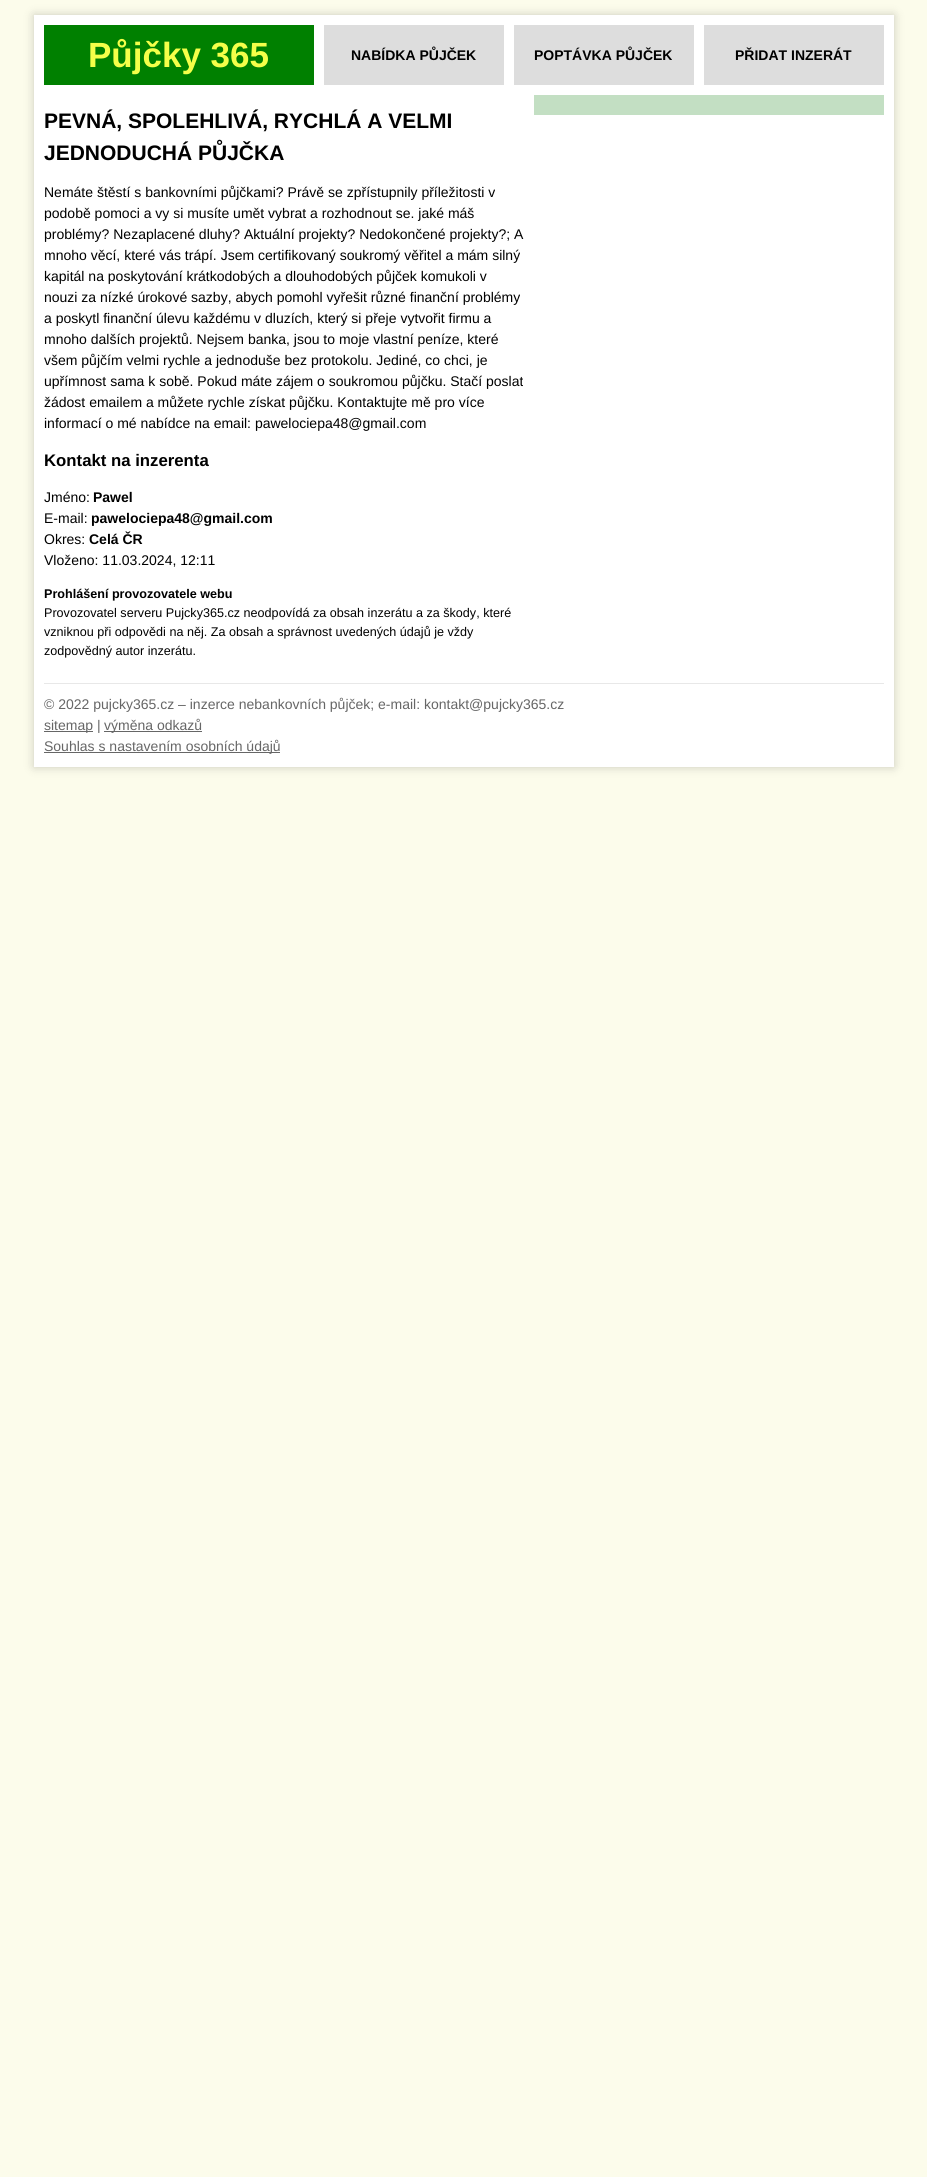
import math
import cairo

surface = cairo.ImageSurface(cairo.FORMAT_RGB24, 927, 2177)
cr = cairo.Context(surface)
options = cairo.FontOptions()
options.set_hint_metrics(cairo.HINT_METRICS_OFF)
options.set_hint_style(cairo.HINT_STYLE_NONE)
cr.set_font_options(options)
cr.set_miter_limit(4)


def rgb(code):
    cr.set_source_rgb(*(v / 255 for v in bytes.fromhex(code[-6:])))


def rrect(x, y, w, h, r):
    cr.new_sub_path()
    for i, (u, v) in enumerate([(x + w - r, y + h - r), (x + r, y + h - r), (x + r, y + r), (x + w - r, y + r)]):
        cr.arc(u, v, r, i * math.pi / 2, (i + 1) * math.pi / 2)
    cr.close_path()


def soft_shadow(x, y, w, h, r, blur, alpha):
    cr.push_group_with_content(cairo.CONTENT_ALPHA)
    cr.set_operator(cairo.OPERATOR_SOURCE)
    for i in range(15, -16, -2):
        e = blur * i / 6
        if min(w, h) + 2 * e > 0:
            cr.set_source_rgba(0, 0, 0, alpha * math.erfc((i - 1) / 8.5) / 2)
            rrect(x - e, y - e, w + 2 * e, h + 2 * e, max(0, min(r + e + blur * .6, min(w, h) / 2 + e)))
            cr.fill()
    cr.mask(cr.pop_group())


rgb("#fcfceb")
cr.paint()
rgb("#000000")
soft_shadow(34, 15, 860, 752, 0, 5, 0.2)
for x, y, w, h, color in [
    (34, 15, 860, 752, "#ffffff"),
    (44, 25, 270, 60, "#008000"),
    (324, 25, 180, 60, "#dddddd"),
    (514, 25, 180, 60, "#dddddd"),
    (704, 25, 180, 60, "#dddddd"),
    (534, 95, 350, 20, "#c3dfc3"),
    (44, 683, 840, 1, "#e8e8e8"),
    (44, 731, 49, 1, "#666666"),
    (104, 731, 98, 1, "#666666"),
    (44, 752, 236, 1, "#666666"),
]:
    rgb(color)
    cr.rectangle(x, y, w, h)
    cr.fill()
cr.select_font_face("Liberation Sans", cairo.FONT_SLANT_NORMAL, cairo.FONT_WEIGHT_BOLD)
cr.set_font_size(35)
rgb("#f4ff49")
cr.move_to(88, 67)
cr.show_text("Půjčky 365")
cr.set_font_size(14)
rgb("#000000")
for x, y, s in [
    (351, 60, "NABÍDKA PŮJČEK"),
    (534, 60, "POPTÁVKA PŮJČEK"),
    (735, 60, "PŘIDAT INZERÁT"),
]:
    cr.move_to(x, y)
    cr.show_text(s)
cr.set_font_size(21)
cr.move_to(44, 128)
cr.show_text("PEVNÁ, SPOLEHLIVÁ, RYCHLÁ A VELMI")
cr.move_to(44, 160)
cr.show_text("JEDNODUCHÁ PŮJČKA")
cr.select_font_face("Liberation Sans")
cr.set_font_size(14)
for x, y, s in [
    (44, 197, "Nemáte štěstí s bankovními půjčkami? Právě se zpřístupnily příležitosti v"),
    (44, 218, "podobě pomoci a vy si musíte umět vybrat a rozhodnout se. jaké máš"),
    (44, 239, "problémy? Nezaplacené dluhy? Aktuální projekty? Nedokončené projekty?; A"),
    (44, 260, "mnoho věcí, které vás trápí. Jsem certifikovaný soukromý věřitel a mám silný"),
    (44, 281, "kapitál na poskytování krátkodobých a dlouhodobých půjček komukoli v"),
    (44, 302, "nouzi za nízké úrokové sazby, abych pomohl vyřešit různé finanční problémy"),
    (44, 323, "a poskytl finanční úlevu každému v dluzích, který si přeje vytvořit firmu a"),
    (44, 344, "mnoho dalších projektů. Nejsem banka, jsou to moje vlastní peníze, které"),
    (44, 365, "všem půjčím velmi rychle a jednoduše bez protokolu. Jediné, co chci, je"),
    (44, 386, "upřímnost sama k sobě. Pokud máte zájem o soukromou půjčku. Stačí poslat"),
    (44, 407, "žádost emailem a můžete rychle získat půjčku. Kontaktujte mě pro více"),
    (44, 428, "informací o mé nabídce na email: pawelociepa48@gmail.com"),
]:
    cr.move_to(x, y)
    cr.show_text(s)
cr.select_font_face("Liberation Sans", cairo.FONT_SLANT_NORMAL, cairo.FONT_WEIGHT_BOLD)
cr.set_font_size(16.75)
cr.move_to(44, 466)
cr.show_text("Kontakt na inzerenta")
cr.select_font_face("Liberation Sans")
cr.set_font_size(14)
cr.move_to(44, 502)
cr.show_text("Jméno:")
cr.select_font_face("Liberation Sans", cairo.FONT_SLANT_NORMAL, cairo.FONT_WEIGHT_BOLD)
cr.move_to(93, 502)
cr.show_text("Pawel")
cr.select_font_face("Liberation Sans")
cr.move_to(44, 523)
cr.show_text("E-mail:")
cr.select_font_face("Liberation Sans", cairo.FONT_SLANT_NORMAL, cairo.FONT_WEIGHT_BOLD)
cr.move_to(91, 523)
cr.show_text("pawelociepa48@gmail.com")
cr.select_font_face("Liberation Sans")
cr.move_to(44, 544)
cr.show_text("Okres:")
cr.select_font_face("Liberation Sans", cairo.FONT_SLANT_NORMAL, cairo.FONT_WEIGHT_BOLD)
cr.move_to(89, 544)
cr.show_text("Celá ČR")
cr.select_font_face("Liberation Sans")
cr.move_to(44, 565)
cr.show_text("Vloženo: 11.03.2024, 12:11")
cr.select_font_face("Liberation Sans", cairo.FONT_SLANT_NORMAL, cairo.FONT_WEIGHT_BOLD)
cr.set_font_size(12.6)
cr.move_to(44, 598)
cr.show_text("Prohlášení provozovatele webu")
cr.select_font_face("Liberation Sans")
for x, y, s in [
    (44, 617, "Provozovatel serveru Pujcky365.cz neodpovídá za obsah inzerátu a za škody, které"),
    (44, 636, "vzniknou při odpovědi na něj. Za obsah a správnost uvedených údajů je vždy"),
    (44, 655, "zodpovědný autor inzerátu."),
]:
    cr.move_to(x, y)
    cr.show_text(s)
cr.set_font_size(14)
rgb("#666666")
for x, y, s in [
    (44, 709, "© 2022 pujcky365.cz – inzerce nebankovních půjček; e-mail: kontakt@pujcky365.cz"),
    (44, 730, "sitemap |"),
    (104, 730, "výměna odkazů"),
    (44, 751, "Souhlas s nastavením osobních údajů"),
]:
    cr.move_to(x, y)
    cr.show_text(s)
surface.write_to_png("page.png")
